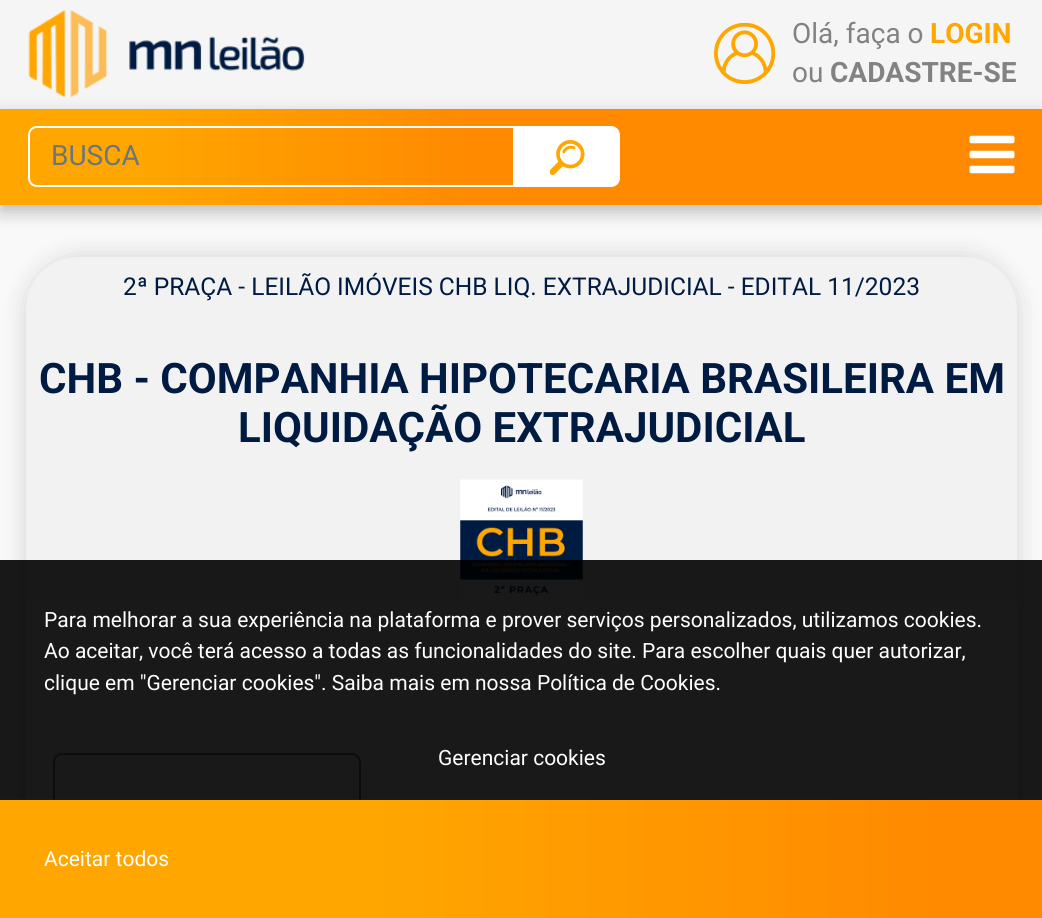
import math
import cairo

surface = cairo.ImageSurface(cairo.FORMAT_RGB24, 1042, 918)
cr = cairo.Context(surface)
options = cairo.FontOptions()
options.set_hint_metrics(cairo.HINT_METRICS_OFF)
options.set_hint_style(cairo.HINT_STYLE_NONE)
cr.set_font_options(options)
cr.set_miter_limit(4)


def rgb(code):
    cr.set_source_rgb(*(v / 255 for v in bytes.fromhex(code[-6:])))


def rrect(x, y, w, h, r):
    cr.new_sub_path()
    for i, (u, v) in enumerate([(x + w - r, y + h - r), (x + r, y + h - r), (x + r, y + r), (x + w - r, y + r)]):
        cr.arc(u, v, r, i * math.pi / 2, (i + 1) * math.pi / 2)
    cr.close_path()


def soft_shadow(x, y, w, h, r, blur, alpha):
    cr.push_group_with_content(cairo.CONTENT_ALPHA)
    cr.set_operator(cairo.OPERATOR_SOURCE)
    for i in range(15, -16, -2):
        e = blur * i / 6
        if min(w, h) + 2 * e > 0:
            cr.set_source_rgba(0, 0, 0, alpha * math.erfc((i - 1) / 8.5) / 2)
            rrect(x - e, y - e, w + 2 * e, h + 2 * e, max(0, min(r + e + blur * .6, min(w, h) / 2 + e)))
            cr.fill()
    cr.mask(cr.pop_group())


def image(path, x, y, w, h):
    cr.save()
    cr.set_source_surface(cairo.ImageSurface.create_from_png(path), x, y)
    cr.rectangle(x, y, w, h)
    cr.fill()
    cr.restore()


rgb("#f9f9f9")
cr.paint()
rgb("#f5f5f5")
cr.rectangle(0, 0, 1042, 109)
cr.fill()
image("img/1.png", 28, 9, 277, 89)
image("img/2.png", 714, 23, 61, 61)
rgb("#000000")
soft_shadow(0, 116, 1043, 96, 0, 9, 0.25)
gradient = cairo.LinearGradient(0, 157, 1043, 157)
gradient.add_color_stop_rgba(0.12, 1, 0.655, 0, 1)
gradient.add_color_stop_rgba(0.45, 1, 0.541, 0, 1)
cr.set_source(gradient)
cr.rectangle(0, 109, 1042, 96)
cr.fill()
cr.new_path()
cr.move_to(37, 127)
cr.line_to(514, 127)
cr.line_to(514, 186)
cr.line_to(37, 186)
cr.curve_to(32.5, 186, 29, 182.5, 29, 178)
cr.line_to(29, 135)
cr.curve_to(29, 130.5, 32.5, 127, 37, 127)
cr.close_path()
rgb("#ffffff")
cr.stroke()
cr.new_path()
cr.move_to(515, 126)
cr.line_to(611, 126)
cr.curve_to(616, 126, 620, 130, 620, 135)
cr.line_to(620, 178)
cr.curve_to(620, 183, 616, 187, 611, 187)
cr.line_to(515, 187)
cr.close_path()
cr.fill()
image("img/3.png", 550, 140, 35, 35)
image("img/4.png", 969, 135, 46, 39)
rgb("#000000")
soft_shadow(26, 257, 991, 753, 53, 13, 0.15)
rgb("#f2f2f2")
cr.new_path()
cr.move_to(79, 257)
cr.line_to(964, 257)
cr.curve_to(993.5, 257, 1017, 280.5, 1017, 310)
cr.line_to(1017, 602)
cr.line_to(26, 602)
cr.line_to(26, 310)
cr.curve_to(26, 280.5, 49.5, 257, 79, 257)
cr.close_path()
cr.fill()
image("img/5.png", 460, 479, 123, 123)
rgb("#ffffff")
cr.rectangle(26, 602, 991, 198)
cr.fill()
rrect(54, 754, 306, 69, 8)
rgb("#828282")
cr.stroke()
cr.set_source_rgba(0, 0, 0, 0.9)
cr.rectangle(0, 560, 1042, 240)
cr.fill()
gradient = cairo.LinearGradient(0, 859, 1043, 859)
gradient.add_color_stop_rgba(0.34, 1, 0.655, 0, 1)
gradient.add_color_stop_rgba(0.9, 1, 0.541, 0, 1)
cr.set_source(gradient)
cr.rectangle(0, 800, 1042, 118)
cr.fill()
cr.select_font_face("Roboto")
cr.set_font_size(28)
rgb("#828282")
cr.move_to(792, 43)
cr.show_text("Olá, faça o")
cr.select_font_face("Roboto", cairo.FONT_SLANT_NORMAL, cairo.FONT_WEIGHT_BOLD)
rgb("#ffa700")
cr.move_to(930, 43)
cr.show_text("LOGIN")
cr.select_font_face("Roboto")
rgb("#828282")
cr.move_to(792, 82)
cr.show_text("ou")
cr.select_font_face("Roboto", cairo.FONT_SLANT_NORMAL, cairo.FONT_WEIGHT_BOLD)
cr.move_to(830, 82)
cr.show_text("CADASTRE-SE")
cr.select_font_face("Roboto")
rgb("#6c757d")
cr.move_to(51, 165)
cr.show_text("BUSCA")
cr.set_font_size(24.5)
rgb("#001b42")
cr.move_to(123, 295)
cr.show_text("2ª PRAÇA - LEILÃO IMÓVEIS CHB LIQ. EXTRAJUDICIAL - EDITAL 11/2023")
cr.select_font_face("Roboto", cairo.FONT_SLANT_NORMAL, cairo.FONT_WEIGHT_BOLD)
cr.set_font_size(42)
cr.move_to(39, 393)
cr.show_text("CHB - COMPANHIA HIPOTECARIA BRASILEIRA EM")
cr.move_to(238, 442)
cr.show_text("LIQUIDAÇÃO EXTRAJUDICIAL")
cr.select_font_face("Roboto")
cr.set_font_size(21)
rgb("#ffffff")
for x, y, s in [
    (44, 627, "Para melhorar a sua experiência na plataforma e prover serviços personalizados, utilizamos cookies."),
    (44, 658, "Ao aceitar, você terá acesso a todas as funcionalidades do site. Para escolher quais quer autorizar,"),
    (44, 690, "clique em \"Gerenciar cookies\". Saiba mais em nossa Política de Cookies."),
    (438, 765, "Gerenciar cookies"),
    (44, 866, "Aceitar todos"),
]:
    cr.move_to(x, y)
    cr.show_text(s)
surface.write_to_png("page.png")
